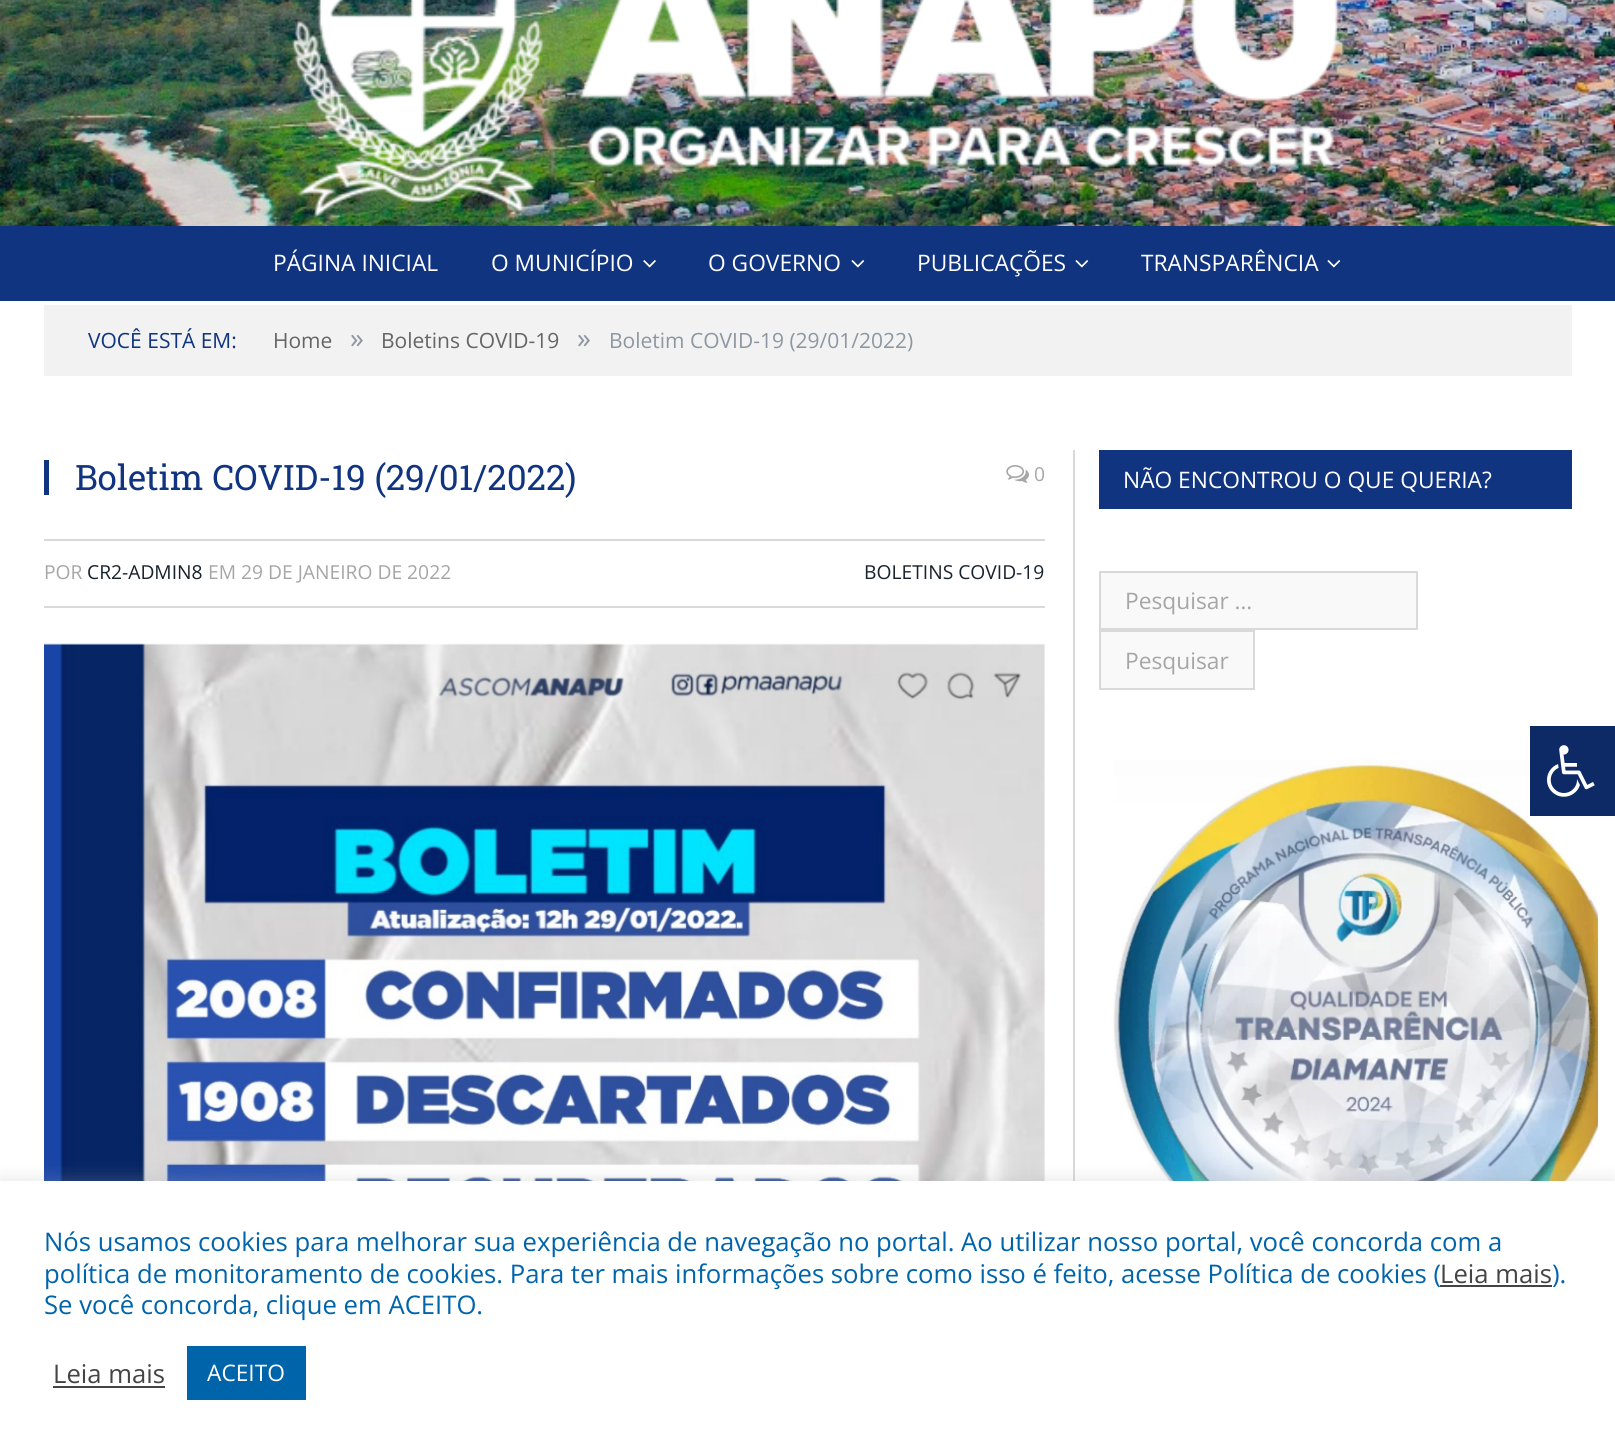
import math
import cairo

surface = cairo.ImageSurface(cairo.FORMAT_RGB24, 1615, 1451)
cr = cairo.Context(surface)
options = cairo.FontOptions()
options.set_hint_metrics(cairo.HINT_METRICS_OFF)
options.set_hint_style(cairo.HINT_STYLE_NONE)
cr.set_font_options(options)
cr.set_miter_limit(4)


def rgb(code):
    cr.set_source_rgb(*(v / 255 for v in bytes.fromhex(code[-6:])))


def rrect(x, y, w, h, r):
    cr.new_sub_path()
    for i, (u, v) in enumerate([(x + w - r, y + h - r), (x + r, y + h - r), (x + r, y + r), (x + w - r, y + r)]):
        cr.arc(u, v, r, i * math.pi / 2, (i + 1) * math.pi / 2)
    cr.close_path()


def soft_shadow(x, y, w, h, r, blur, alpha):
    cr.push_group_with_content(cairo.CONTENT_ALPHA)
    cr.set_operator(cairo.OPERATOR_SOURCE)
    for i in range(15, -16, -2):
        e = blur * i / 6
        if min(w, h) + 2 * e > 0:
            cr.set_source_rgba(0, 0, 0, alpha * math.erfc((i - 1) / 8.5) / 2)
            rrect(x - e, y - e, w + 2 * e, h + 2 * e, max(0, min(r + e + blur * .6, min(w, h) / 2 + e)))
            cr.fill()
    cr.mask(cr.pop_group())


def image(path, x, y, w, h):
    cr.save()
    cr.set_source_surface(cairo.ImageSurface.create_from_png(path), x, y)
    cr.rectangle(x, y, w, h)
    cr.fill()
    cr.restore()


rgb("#ffffff")
cr.paint()
image("img/1.png", 0, 0, 1615, 226)
image("img/2.png", 292, 0, 1047, 218)
rgb("#103480")
cr.rectangle(0, 226, 1615, 75)
cr.fill()
image("img/3.png", 643, 260, 13, 8)
image("img/4.png", 851, 260, 14, 8)
image("img/4.png", 1075, 260, 14, 8)
image("img/4.png", 1327, 260, 14, 8)
rgb("#f2f2f2")
cr.rectangle(44, 305, 1528, 71)
cr.fill()
rgb("#103480")
cr.rectangle(44, 460, 5, 35)
cr.fill()
image("img/5.png", 1006, 465, 23, 18)
rgb("#d9d9d9")
cr.rectangle(44, 539, 1001, 2)
cr.fill()
cr.rectangle(44, 606, 1001, 2)
cr.fill()
image("img/6.png", 44, 643, 1001, 538)
cr.rectangle(1073, 450, 2, 731)
cr.fill()
rgb("#103480")
cr.rectangle(1099, 450, 473, 59)
cr.fill()
rgb("#f9f9f9")
cr.rectangle(1100, 572, 317, 57)
cr.fill_preserve()
rgb("#d9d9d9")
cr.stroke()
rgb("#f9f9f9")
cr.rectangle(1100, 631, 154, 58)
cr.fill_preserve()
rgb("#d9d9d9")
cr.stroke()
image("img/7.png", 1113, 760, 485, 421)
rgb("#0d2a66")
cr.rectangle(1530, 726, 85, 90)
cr.fill()
image("img/8.png", 1547, 745, 48, 52)
rgb("#acabab")
soft_shadow(0, 1180, 1615, 271, 0, 9, 0.3)
for x, y, w, h, color in [
    (0, 1181, 1615, 270, "#ffffff"),
    (1440, 1285, 112, 2, "#444444"),
    (53, 1386, 112, 2, "#444444"),
    (187, 1346, 119, 54, "#0064ab"),
]:
    rgb(color)
    cr.rectangle(x, y, w, h)
    cr.fill()
cr.select_font_face("Open Sans")
cr.set_font_size(22.75)
rgb("#ffffff")
for x, y, s in [
    (273, 271, "PÁGINA INICIAL"),
    (491, 271, "O MUNICÍPIO"),
    (708, 271, "O GOVERNO"),
    (917, 271, "PUBLICAÇÕES"),
    (1141, 271, "TRANSPARÊNCIA"),
]:
    cr.move_to(x, y)
    cr.show_text(s)
cr.set_font_size(21)
rgb("#103480")
cr.move_to(88, 348)
cr.show_text("VOCÊ ESTÁ EM:")
rgb("#656565")
cr.move_to(273, 348)
cr.show_text("Home")
cr.set_font_size(28)
rgb("#8d97a1")
cr.move_to(350, 348)
cr.show_text("»")
cr.set_font_size(21)
rgb("#656565")
cr.move_to(381, 348)
cr.show_text("Boletins COVID-19")
cr.set_font_size(28)
rgb("#8d97a1")
cr.move_to(577, 348)
cr.show_text("»")
cr.set_font_size(21)
cr.move_to(609, 348)
cr.show_text("Boletim COVID-19 (29/01/2022)")
cr.select_font_face("Roboto Slab")
cr.set_font_size(35)
rgb("#103480")
cr.move_to(75, 490)
cr.show_text("Boletim COVID-19 (29/01/2022)")
cr.select_font_face("Open Sans")
cr.set_font_size(19.25)
rgb("#a6a6a6")
cr.move_to(1034, 481)
cr.show_text("0")
cr.move_to(44, 579)
cr.show_text("POR")
rgb("#19232d")
cr.move_to(87, 579)
cr.show_text("CR2-ADMIN8")
rgb("#a6a6a6")
cr.move_to(208, 579)
cr.show_text("EM 29 DE JANEIRO DE 2022")
rgb("#19232d")
cr.move_to(864, 579)
cr.show_text("BOLETINS COVID-19")
cr.set_font_size(22.75)
rgb("#ffffff")
cr.move_to(1123, 488)
cr.show_text("NÃO ENCONTROU O QUE QUERIA?")
rgb("#a6a6a6")
cr.move_to(1125, 609)
cr.show_text("Pesquisar …")
cr.move_to(1125, 669)
cr.show_text("Pesquisar")
cr.set_font_size(25.67)
rgb("#0064ab")
cr.move_to(44, 1251)
cr.show_text("Nós usamos cookies para melhorar sua experiência de navegação no portal. Ao utilizar nosso portal, você concorda com a")
cr.move_to(44, 1283)
cr.show_text("política de monitoramento de cookies. Para ter mais informações sobre como isso é feito, acesse Política de cookies (")
rgb("#444444")
cr.move_to(1440, 1283)
cr.show_text("Leia mais")
rgb("#0064ab")
cr.move_to(1552, 1283)
cr.show_text(").")
cr.move_to(44, 1314)
cr.show_text("Se você concorda, clique em ACEITO.")
rgb("#444444")
cr.move_to(53, 1383)
cr.show_text("Leia mais")
cr.set_font_size(22.75)
rgb("#ffffff")
cr.move_to(207, 1381)
cr.show_text("ACEITO")
surface.write_to_png("page.png")
